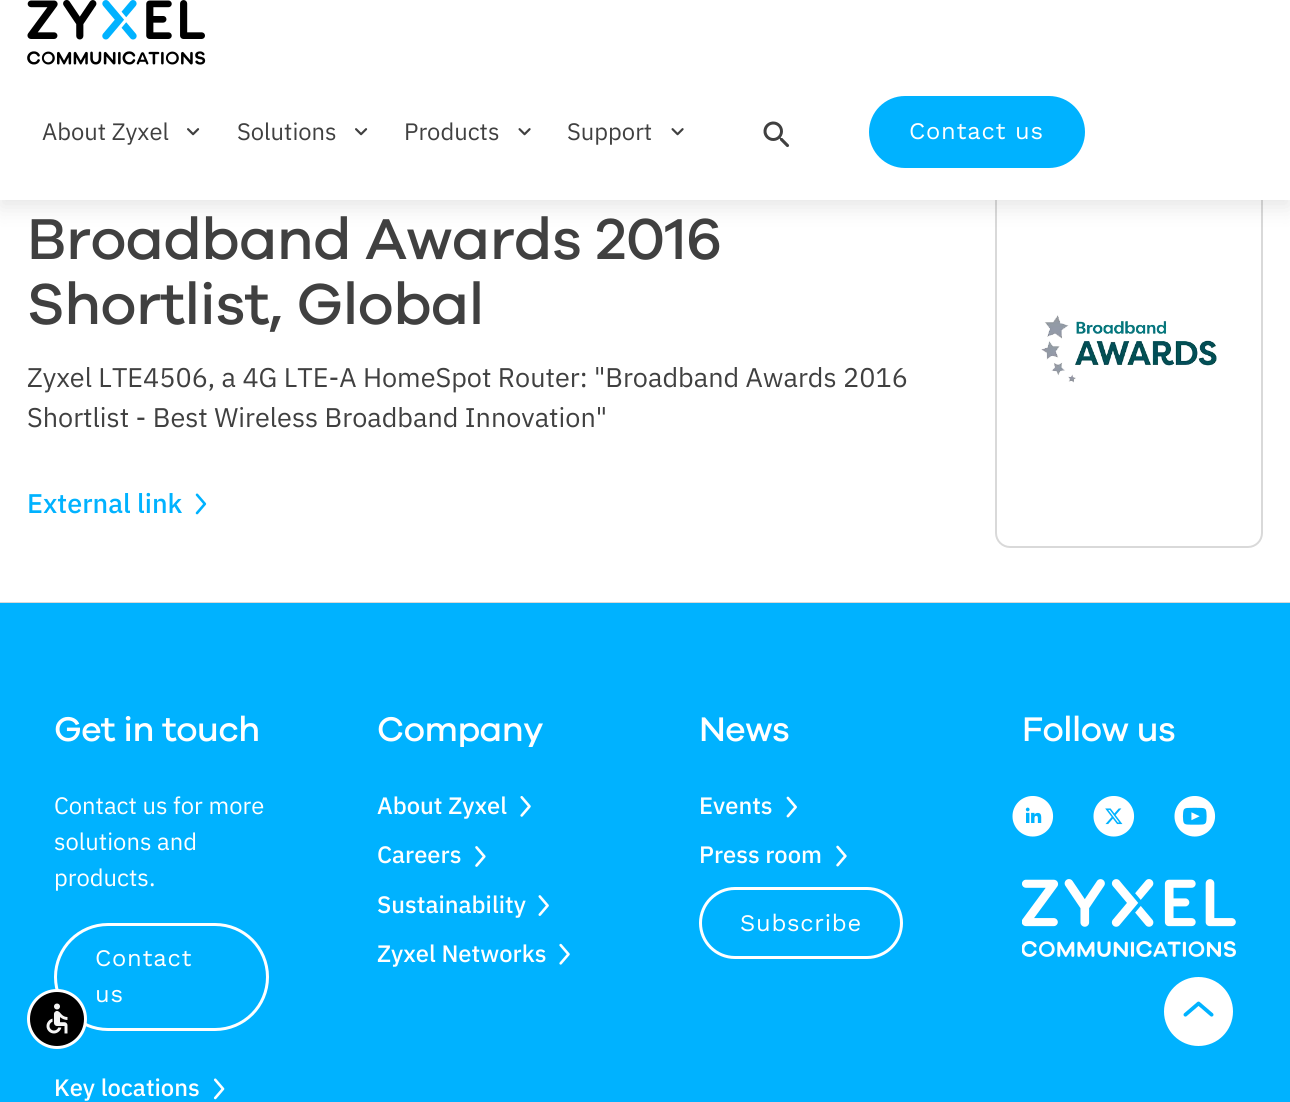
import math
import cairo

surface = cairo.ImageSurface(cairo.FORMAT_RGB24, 1290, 1102)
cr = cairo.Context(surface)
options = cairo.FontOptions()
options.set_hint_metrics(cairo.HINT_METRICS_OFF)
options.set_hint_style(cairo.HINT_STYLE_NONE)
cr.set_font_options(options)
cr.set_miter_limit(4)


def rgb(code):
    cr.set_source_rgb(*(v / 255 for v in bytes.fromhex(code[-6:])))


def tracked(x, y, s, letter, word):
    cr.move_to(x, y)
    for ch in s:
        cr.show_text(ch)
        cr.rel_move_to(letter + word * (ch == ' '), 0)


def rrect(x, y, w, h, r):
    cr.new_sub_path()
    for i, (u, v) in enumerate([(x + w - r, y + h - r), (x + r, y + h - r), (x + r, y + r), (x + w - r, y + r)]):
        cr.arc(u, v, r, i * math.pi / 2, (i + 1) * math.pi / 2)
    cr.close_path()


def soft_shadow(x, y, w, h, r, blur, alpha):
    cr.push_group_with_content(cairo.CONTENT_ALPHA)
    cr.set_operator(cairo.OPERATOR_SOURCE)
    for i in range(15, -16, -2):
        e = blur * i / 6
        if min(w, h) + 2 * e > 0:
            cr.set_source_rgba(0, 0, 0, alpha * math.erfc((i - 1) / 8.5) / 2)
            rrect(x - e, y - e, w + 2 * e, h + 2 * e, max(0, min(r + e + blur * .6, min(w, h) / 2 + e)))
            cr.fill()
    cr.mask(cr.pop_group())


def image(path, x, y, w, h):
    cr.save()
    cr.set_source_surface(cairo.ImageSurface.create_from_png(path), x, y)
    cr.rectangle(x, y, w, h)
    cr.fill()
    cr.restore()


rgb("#ffffff")
cr.paint()
rrect(996, 151, 266, 396, 14)
rgb("#d9d9d9")
cr.stroke()
rgb("#000000")
soft_shadow(0, 8, 1290, 199, 0, 11, 0.1)
rgb("#ffffff")
cr.rectangle(0, 0, 1290, 200)
cr.fill()
image("img/1.png", 27, 0, 179, 65)
image("img/2.png", 187, 128, 13, 8)
image("img/2.png", 355, 128, 13, 8)
image("img/3.png", 518, 128, 13, 8)
image("img/3.png", 671, 128, 13, 8)
image("img/4.png", 763, 121, 27, 27)
rgb("#00b2ff")
rrect(870.5, 97.5, 213, 69, 34.5)
cr.fill_preserve()
cr.set_line_width(3)
cr.stroke()
rgb("#d9d9d9")
cr.rectangle(0, 602, 1290, 1)
cr.fill()
image("img/5.png", 195, 493, 12, 22)
image("img/6.png", 1041, 315, 176, 68)
rgb("#00b2ff")
cr.rectangle(0, 603, 1290, 499)
cr.fill()
rrect(55.5, 924.5, 212, 105, 52.5)
rgb("#ffffff")
cr.stroke()
image("img/7.png", 213, 1078, 12, 22)
image("img/8.png", 520, 796, 11, 21)
image("img/9.png", 475, 846, 11, 21)
image("img/10.png", 538, 895, 11, 21)
image("img/11.png", 559, 943, 11, 22)
image("img/12.png", 786, 796, 11, 22)
image("img/13.png", 836, 845, 11, 22)
rrect(700.5, 888.5, 201, 69, 34.5)
cr.stroke()
image("img/14.png", 1012, 796, 42, 41)
image("img/15.png", 1093, 796, 42, 41)
image("img/16.png", 1174, 796, 42, 41)
image("img/17.png", 1022, 879, 214, 78)
cr.arc(1198.5, 1011.5, 36, 0, 2 * math.pi)
cr.fill_preserve()
rgb("#00b2ff")
cr.stroke()
image("img/18.png", 1183, 1001, 31, 16)
rgb("#000000")
cr.arc(57, 1019, 28.5, 0, 2 * math.pi)
cr.fill_preserve()
rgb("#ffffff")
cr.stroke()
image("img/19.png", 46, 1003, 22, 31)
cr.select_font_face("IBM Plex Sans")
cr.set_font_size(23.75)
rgb("#404040")
for x, y, s in [
    (42, 140, "About Zyxel"),
    (237, 140, "Solutions"),
    (404, 140, "Products"),
    (567, 140, "Support"),
]:
    cr.move_to(x, y)
    cr.show_text(s)
cr.select_font_face("Work Sans")
rgb("#ffffff")
tracked(909, 139, "Contact us", 0.75, 0)
cr.select_font_face("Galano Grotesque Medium")
cr.set_font_size(59.4)
rgb("#404040")
tracked(27, 259, "Broadband Awards 2016", -0.5, 0)
tracked(27, 324, "Shortlist, Global", -0.5, 0)
cr.select_font_face("IBM Plex Sans")
cr.set_font_size(27)
cr.move_to(27, 387)
cr.show_text("Zyxel LTE4506, a 4G LTE-A HomeSpot Router: \"Broadband Awards 2016")
cr.move_to(27, 427)
cr.show_text("Shortlist - Best Wireless Broadband Innovation\"")
cr.select_font_face("IBM Plex Sans Medium")
rgb("#00b2ff")
cr.move_to(27, 513)
cr.show_text("External link")
cr.select_font_face("Galano Grotesque Medium")
cr.set_font_size(35.25)
rgb("#ffffff")
tracked(54, 741, "Get in touch", -0.5, 0)
cr.select_font_face("IBM Plex Sans")
cr.set_font_size(23.75)
for x, y, s in [
    (54, 814, "Contact us for more"),
    (54, 850, "solutions and"),
    (54, 886, "products."),
]:
    cr.move_to(x, y)
    cr.show_text(s)
cr.select_font_face("Work Sans")
tracked(95, 966, "Contact", 0.75, 0)
tracked(95, 1002, "us", 0.75, 0)
cr.select_font_face("IBM Plex Sans Medium")
cr.move_to(54, 1096)
cr.show_text("Key locations")
cr.select_font_face("Galano Grotesque Medium")
cr.set_font_size(35.25)
tracked(377, 741, "Company", -0.5, 0)
cr.select_font_face("IBM Plex Sans Medium")
cr.set_font_size(23.75)
for x, y, s in [
    (377, 814, "About Zyxel"),
    (377, 863, "Careers"),
    (377, 913, "Sustainability"),
    (377, 962, "Zyxel Networks"),
]:
    cr.move_to(x, y)
    cr.show_text(s)
cr.select_font_face("Galano Grotesque Medium")
cr.set_font_size(35.25)
tracked(699, 741, "News", -0.5, 0)
cr.select_font_face("IBM Plex Sans Medium")
cr.set_font_size(23.75)
cr.move_to(699, 814)
cr.show_text("Events")
cr.move_to(699, 863)
cr.show_text("Press room")
cr.select_font_face("Work Sans")
tracked(740, 931, "Subscribe", 0.75, 0)
cr.select_font_face("Galano Grotesque Medium")
cr.set_font_size(35.25)
tracked(1022, 741, "Follow us", -0.5, 0)
surface.write_to_png("page.png")
